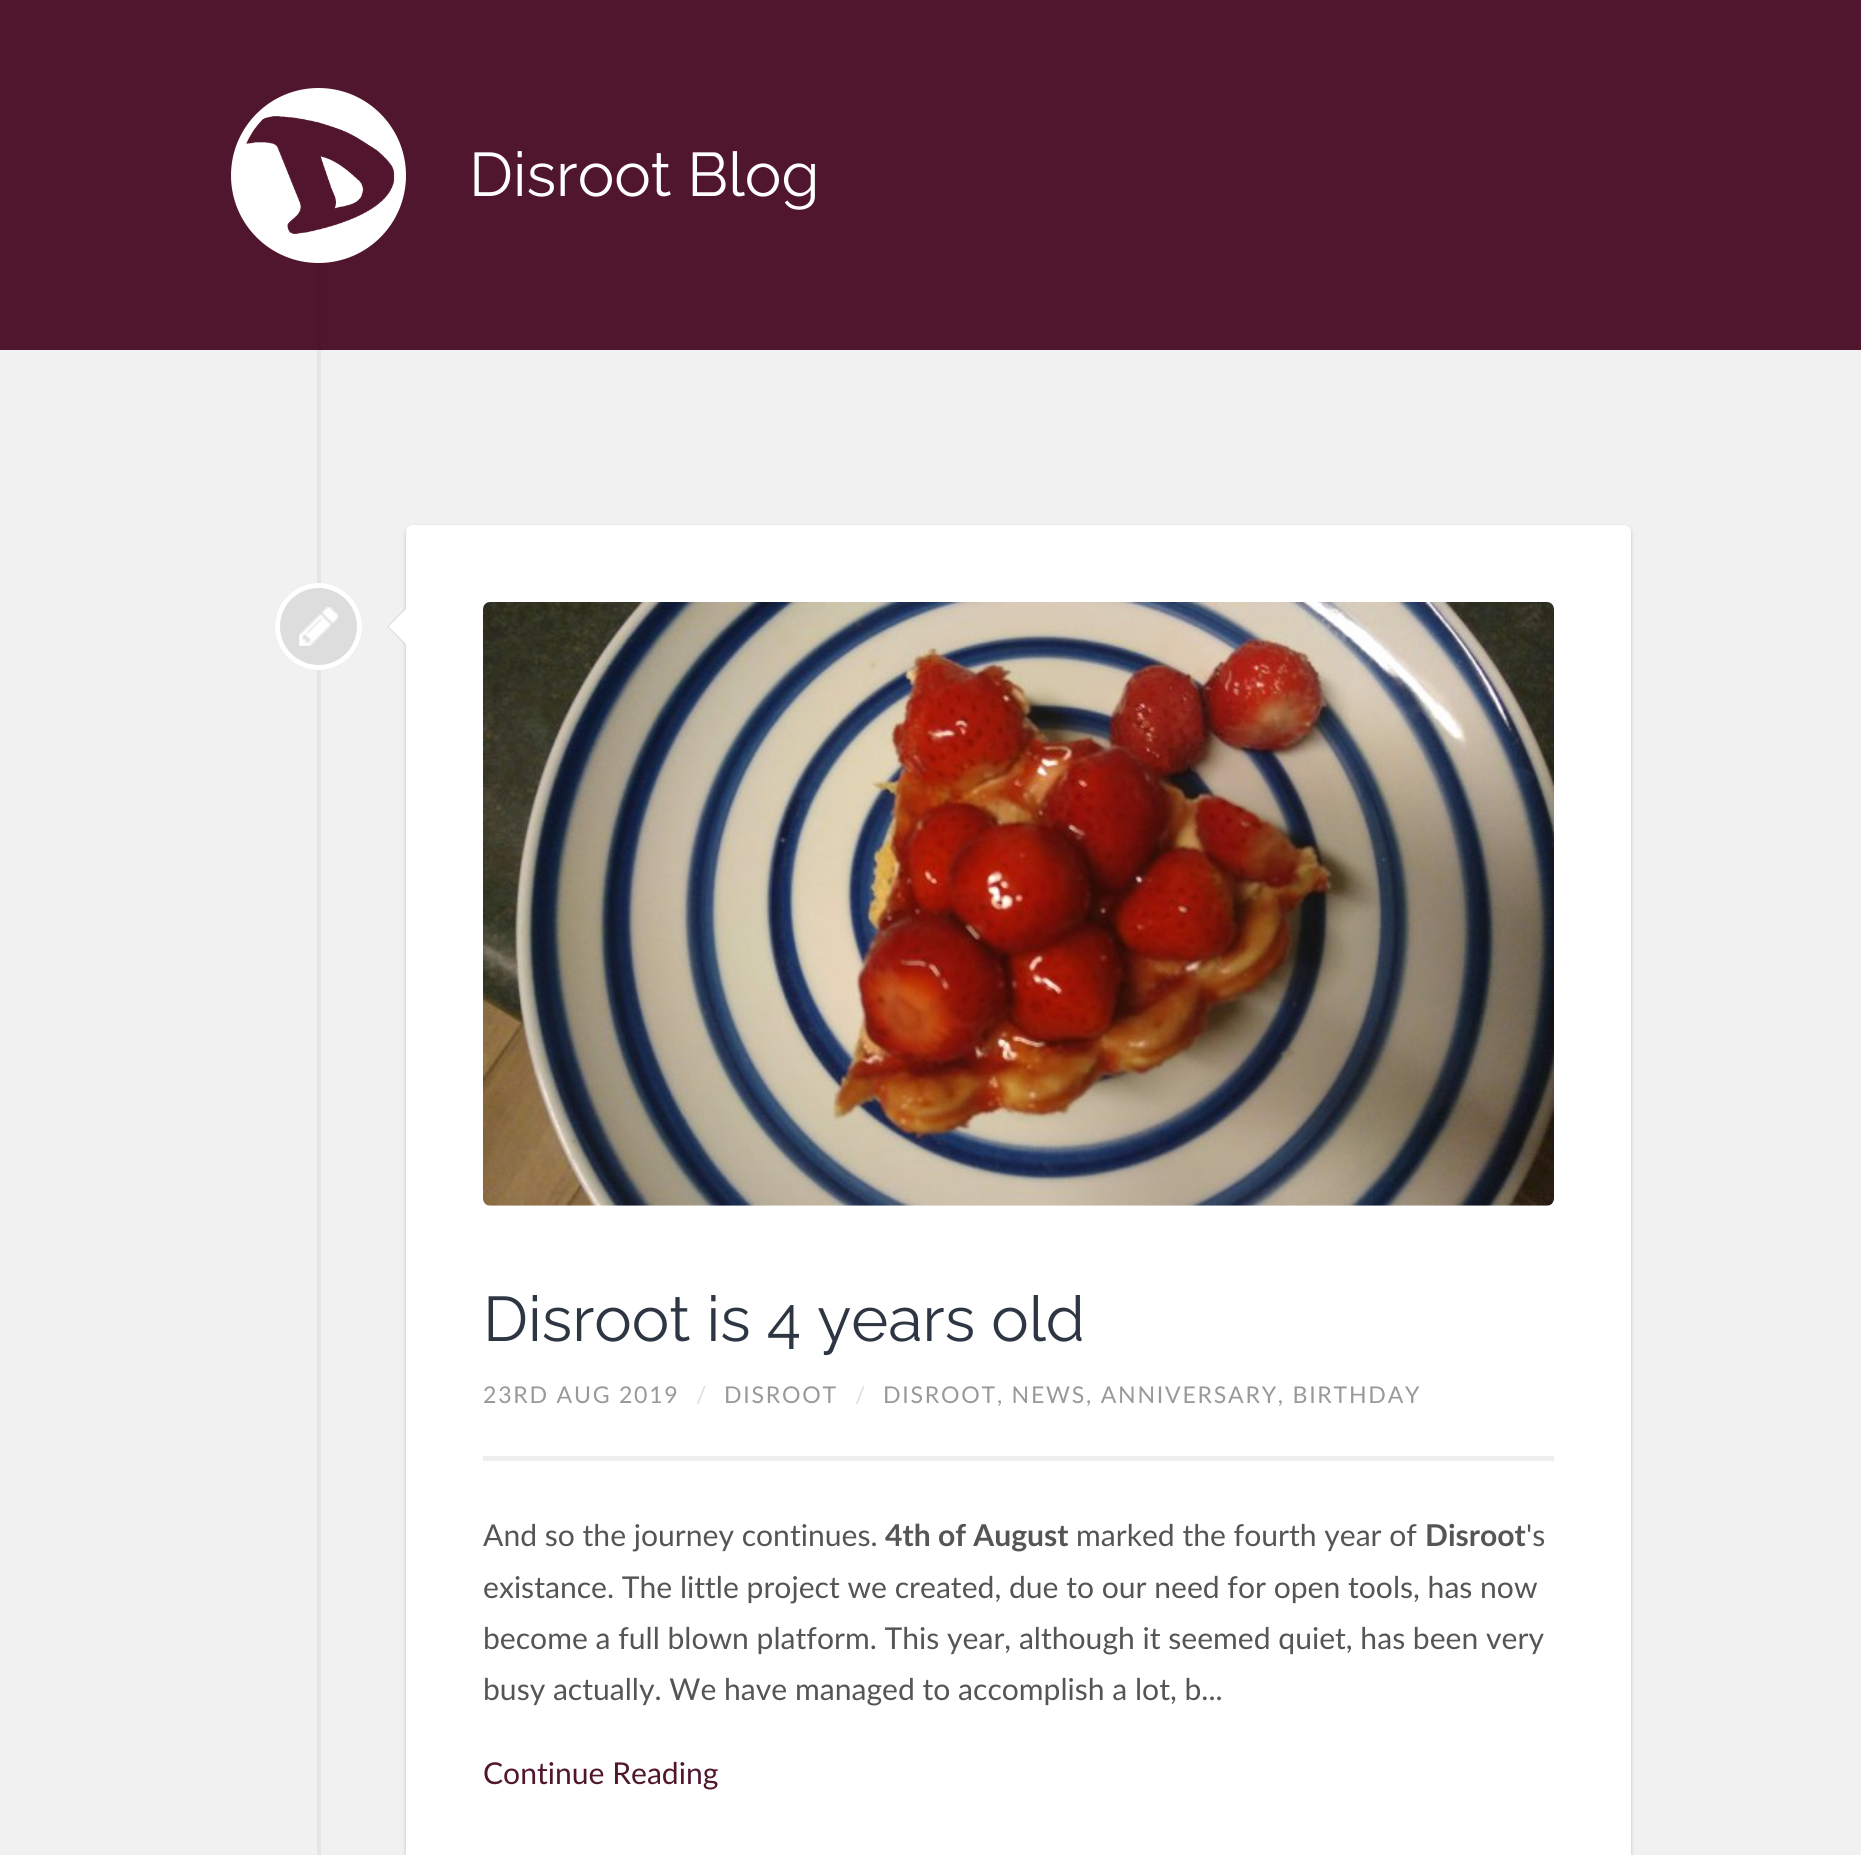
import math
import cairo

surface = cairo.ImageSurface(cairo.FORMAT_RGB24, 1861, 1855)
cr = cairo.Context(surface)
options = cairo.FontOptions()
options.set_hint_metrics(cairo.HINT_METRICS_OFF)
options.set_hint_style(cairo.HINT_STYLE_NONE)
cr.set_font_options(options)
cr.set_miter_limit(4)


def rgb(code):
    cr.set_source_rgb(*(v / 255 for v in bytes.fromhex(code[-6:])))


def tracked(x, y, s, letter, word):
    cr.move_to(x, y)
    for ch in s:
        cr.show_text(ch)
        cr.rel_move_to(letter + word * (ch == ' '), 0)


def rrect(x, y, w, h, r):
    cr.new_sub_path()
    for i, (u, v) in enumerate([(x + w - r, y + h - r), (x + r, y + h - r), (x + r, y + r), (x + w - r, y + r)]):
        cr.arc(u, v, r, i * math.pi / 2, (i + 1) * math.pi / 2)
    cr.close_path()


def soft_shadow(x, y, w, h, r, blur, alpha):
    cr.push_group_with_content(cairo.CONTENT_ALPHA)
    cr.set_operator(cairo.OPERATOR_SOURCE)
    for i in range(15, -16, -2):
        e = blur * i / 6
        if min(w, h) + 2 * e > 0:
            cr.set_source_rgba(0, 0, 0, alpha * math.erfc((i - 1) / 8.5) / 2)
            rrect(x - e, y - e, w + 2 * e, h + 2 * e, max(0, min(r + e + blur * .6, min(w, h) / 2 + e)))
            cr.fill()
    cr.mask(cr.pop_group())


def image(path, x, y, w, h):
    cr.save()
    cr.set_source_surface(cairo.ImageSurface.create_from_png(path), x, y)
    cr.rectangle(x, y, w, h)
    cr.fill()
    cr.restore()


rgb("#f1f1f1")
cr.paint()
for x, y, w, h, color in [
    (317, 350, 4, 1505, "#e5e5e5"),
    (0, 0, 1861, 350, "#50162d"),
    (317, 262, 4, 88, "#4c152b"),
]:
    rgb(color)
    cr.rectangle(x, y, w, h)
    cr.fill()
rgb("#ffffff")
cr.arc(318.5, 175.5, 83, 0, 2 * math.pi)
cr.fill_preserve()
cr.set_line_width(9)
cr.stroke()
image("img/1.png", 246, 116, 149, 118)
rgb("#dddddd")
cr.arc(318.5, 626.5, 43.5, 0, 2 * math.pi)
cr.fill()
image("img/2.png", 299, 607, 39, 39)
cr.arc(318.5, 626.5, 41, 0, 2 * math.pi)
rgb("#ffffff")
cr.set_line_width(5)
cr.stroke()
rgb("#000000")
soft_shadow(406, 527, 1225, 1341, 7, 2, 0.2)
rgb("#ffffff")
rrect(406, 525, 1225, 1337, 7)
cr.fill()
rgb("#dddddd")
cr.new_path()
cr.move_to(406, 607)
cr.line_to(406, 646)
cr.line_to(387, 626.5)
cr.close_path()
cr.fill()
rgb("#ffffff")
cr.new_path()
cr.move_to(406, 609)
cr.line_to(406, 644)
cr.line_to(388.5, 626.5)
cr.close_path()
cr.fill()
rgb("#eeeeee")
cr.rectangle(483, 1456, 1071, 5)
cr.fill()
image("img/3.png", 483, 602, 1071, 604)
cr.select_font_face("Raleway")
cr.set_font_size(61.5)
rgb("#ffffff")
cr.move_to(469, 196)
cr.show_text("Disroot Blog")
cr.set_font_size(63)
rgb("#2d3642")
cr.move_to(483, 1341)
cr.show_text("Disroot is 4 years old")
cr.select_font_face("Lato")
cr.set_font_size(23.1)
rgb("#999999")
tracked(483, 1403, "23RD AUG 2019", 1.75, 0)
rgb("#dddddd")
tracked(696, 1403, "/", 1.75, 0)
rgb("#999999")
tracked(724, 1403, "DISROOT", 1.75, 0)
rgb("#dddddd")
tracked(855, 1403, "/", 1.75, 0)
rgb("#999999")
tracked(883, 1403, "DISROOT, NEWS, ANNIVERSARY, BIRTHDAY", 1.75, 0)
cr.set_font_size(30.1)
rgb("#555555")
cr.move_to(483, 1546)
cr.show_text("And so the journey continues.")
cr.select_font_face("Lato", cairo.FONT_SLANT_NORMAL, cairo.FONT_WEIGHT_BOLD)
cr.move_to(885, 1546)
cr.show_text("4th of August")
cr.select_font_face("Lato")
cr.move_to(1076, 1546)
cr.show_text("marked the fourth year of")
cr.select_font_face("Lato", cairo.FONT_SLANT_NORMAL, cairo.FONT_WEIGHT_BOLD)
cr.move_to(1425, 1546)
cr.show_text("Disroot")
cr.select_font_face("Lato")
for x, y, s in [
    (1526, 1546, "'s"),
    (483, 1598, "existance. The little project we created, due to our need for open tools, has now"),
    (483, 1649, "become a full blown platform. This year, although it seemed quiet, has been very"),
    (483, 1700, "busy actually. We have managed to accomplish a lot, b..."),
]:
    cr.move_to(x, y)
    cr.show_text(s)
rgb("#50162d")
cr.move_to(483, 1784)
cr.show_text("Continue Reading")
surface.write_to_png("page.png")
